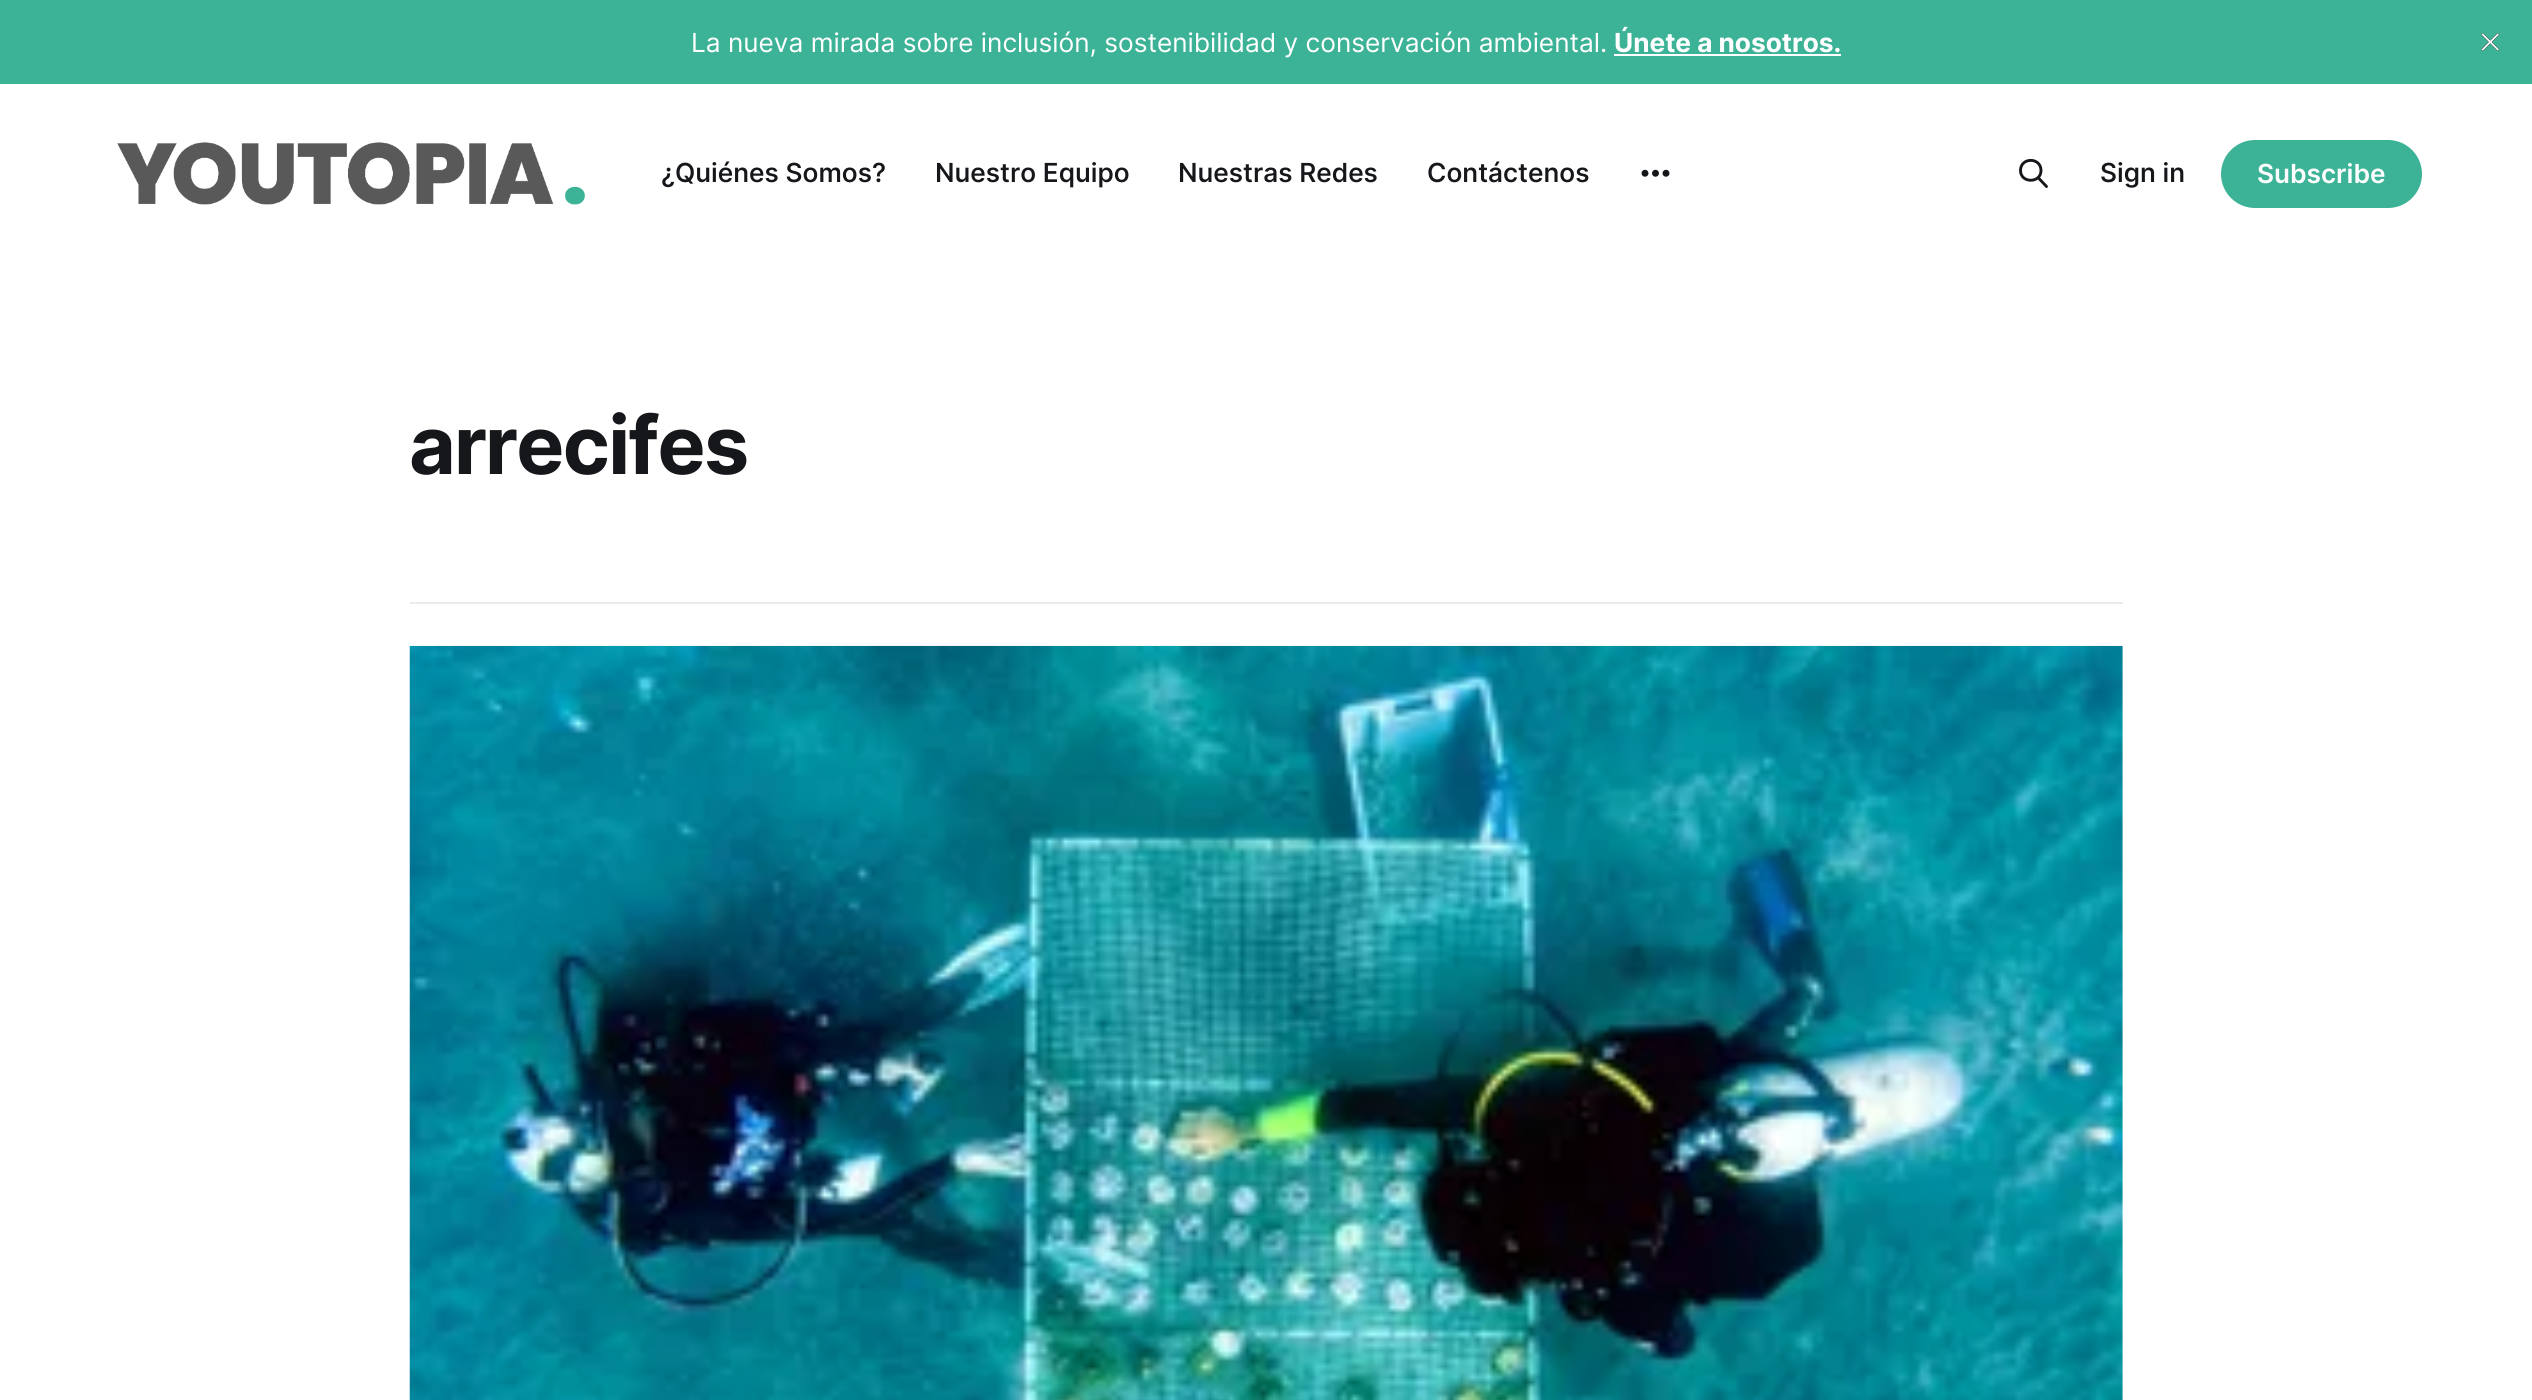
import math
import cairo

surface = cairo.ImageSurface(cairo.FORMAT_RGB24, 2532, 1400)
cr = cairo.Context(surface)
options = cairo.FontOptions()
options.set_hint_metrics(cairo.HINT_METRICS_OFF)
options.set_hint_style(cairo.HINT_STYLE_NONE)
cr.set_font_options(options)
cr.set_miter_limit(4)


def rgb(code):
    cr.set_source_rgb(*(v / 255 for v in bytes.fromhex(code[-6:])))


def tracked(x, y, s, letter, word):
    cr.move_to(x, y)
    for ch in s:
        cr.show_text(ch)
        cr.rel_move_to(letter + word * (ch == ' '), 0)


def rrect(x, y, w, h, r):
    cr.new_sub_path()
    for i, (u, v) in enumerate([(x + w - r, y + h - r), (x + r, y + h - r), (x + r, y + r), (x + w - r, y + r)]):
        cr.arc(u, v, r, i * math.pi / 2, (i + 1) * math.pi / 2)
    cr.close_path()


def image(path, x, y, w, h):
    cr.save()
    cr.set_source_surface(cairo.ImageSurface.create_from_png(path), x, y)
    cr.rectangle(x, y, w, h)
    cr.fill()
    cr.restore()


rgb("#ffffff")
cr.paint()
rgb("#3cb296")
cr.rectangle(0, 0, 2532, 84)
cr.fill()
rgb("#ffffff")
cr.rectangle(1614, 54, 227, 2)
cr.fill()
image("img/1.png", 2481, 33, 19, 18)
image("img/2.png", 117, 142, 468, 63)
image("img/3.png", 1641, 169, 29, 8)
cr.new_path()
cr.move_to(2046.5, 186.5)
cr.line_to(2038, 177.5)
cr.move_to(2041, 170.5)
cr.curve_to(2041, 183.5, 2020.5, 183.5, 2020.5, 170.5)
cr.curve_to(2020.5, 157, 2041, 157, 2041, 170.5)
cr.close_path()
rgb("#15171a")
cr.set_line_width(2.9)
cr.set_line_cap(cairo.LINE_CAP_ROUND)
cr.set_line_join(cairo.LINE_JOIN_ROUND)
cr.stroke()
rgb("#3cb296")
rrect(2221, 140, 201, 68, 34)
cr.fill()
rgb("#ebebeb")
cr.rectangle(410, 602, 1713, 2)
cr.fill()
image("img/4.png", 409, 645, 1714, 755)
cr.select_font_face("Inter")
cr.set_font_size(26.25)
rgb("#ffffff")
cr.move_to(691, 52)
cr.show_text("La nueva mirada sobre inclusión, sostenibilidad y conservación ambiental.")
cr.select_font_face("Inter", cairo.FONT_SLANT_NORMAL, cairo.FONT_WEIGHT_BOLD)
cr.move_to(1614, 52)
cr.show_text("Únete a nosotros.")
cr.select_font_face("Inter Medium")
rgb("#15171a")
for x, y, s in [
    (661, 182, "¿Quiénes Somos?"),
    (935, 182, "Nuestro Equipo"),
    (1178, 182, "Nuestras Redes"),
    (1427, 182, "Contáctenos"),
    (2100, 182, "Sign in"),
]:
    cr.move_to(x, y)
    cr.show_text(s)
cr.select_font_face("Inter SemiBold")
rgb("#ffffff")
cr.move_to(2257, 183)
cr.show_text("Subscribe")
cr.select_font_face("Inter", cairo.FONT_SLANT_NORMAL, cairo.FONT_WEIGHT_BOLD)
cr.set_font_size(80.5)
rgb("#15171a")
tracked(409, 474, "arrecifes", -1.75, 0)
surface.write_to_png("page.png")
